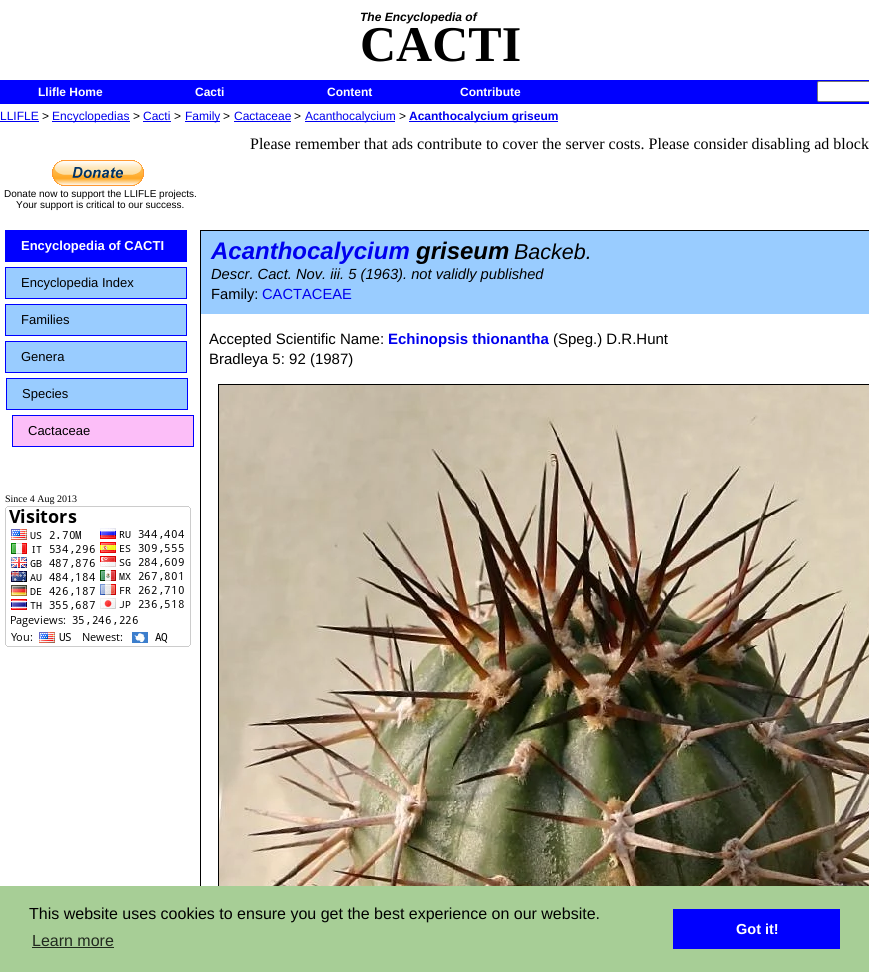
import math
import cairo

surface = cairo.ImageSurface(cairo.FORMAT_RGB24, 869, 972)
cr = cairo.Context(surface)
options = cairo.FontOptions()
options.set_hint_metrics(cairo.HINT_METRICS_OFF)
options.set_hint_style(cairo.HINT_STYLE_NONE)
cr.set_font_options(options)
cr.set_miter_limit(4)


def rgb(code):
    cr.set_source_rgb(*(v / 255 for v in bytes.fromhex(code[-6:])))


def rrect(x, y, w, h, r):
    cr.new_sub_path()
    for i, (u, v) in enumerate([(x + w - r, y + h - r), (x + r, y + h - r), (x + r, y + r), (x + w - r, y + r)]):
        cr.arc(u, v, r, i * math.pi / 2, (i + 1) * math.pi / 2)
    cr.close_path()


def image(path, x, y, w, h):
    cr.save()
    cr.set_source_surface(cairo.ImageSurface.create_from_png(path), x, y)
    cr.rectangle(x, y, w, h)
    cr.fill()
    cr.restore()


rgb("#ffffff")
cr.paint()
rgb("#0000ff")
cr.rectangle(0, 80, 869, 24)
cr.fill()
rgb("#ffffff")
rrect(817.5, 81.5, 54, 20, 1.5)
cr.fill_preserve()
rgb("#767676")
cr.set_line_width(1)
cr.stroke()
for x, y, w, h, color in [
    (0, 121, 39, 1, "#0000ee"),
    (52, 121, 78, 1, "#0000ee"),
    (143, 121, 28, 1, "#0000ee"),
    (185, 121, 35, 1, "#0000ee"),
    (234, 121, 57, 1, "#0000ee"),
    (305, 121, 90, 1, "#0000ee"),
    (409, 121, 149, 1, "#0000ee"),
]:
    rgb(color)
    cr.rectangle(x, y, w, h)
    cr.fill()
image("img/1.png", 52, 160, 92, 26)
rgb("#0000ff")
cr.rectangle(5, 230, 182, 32)
cr.fill()
rgb("#99ccff")
cr.rectangle(5.5, 267.5, 181, 31)
cr.fill_preserve()
rgb("#0000ff")
cr.stroke()
rgb("#99ccff")
cr.rectangle(5.5, 304.5, 181, 31)
cr.fill_preserve()
rgb("#0000ff")
cr.stroke()
rgb("#99ccff")
cr.rectangle(5.5, 341.5, 181, 31)
cr.fill_preserve()
rgb("#0000ff")
cr.stroke()
rgb("#99ccff")
cr.rectangle(6.5, 378.5, 181, 31)
cr.fill_preserve()
rgb("#0000ff")
cr.stroke()
rgb("#fcbef8")
cr.rectangle(12.5, 415.5, 181, 31)
cr.fill_preserve()
rgb("#0000ff")
cr.stroke()
image("img/2.png", 5, 506, 186, 141)
cr.rectangle(200.5, 230.5, 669, 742)
rgb("#000000")
cr.stroke()
rgb("#99ccff")
cr.rectangle(201, 231, 668, 83)
cr.fill()
cr.rectangle(218.5, 384.5, 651, 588)
rgb("#000000")
cr.stroke()
image("img/3.png", 219, 385, 650, 501)
for x, y, w, h, color in [
    (0, 886, 869, 86, "#a7ce96"),
    (32, 947, 82, 1, "#21291e"),
    (673, 909, 167, 40, "#0000ff"),
]:
    rgb(color)
    cr.rectangle(x, y, w, h)
    cr.fill()
cr.select_font_face("Liberation Sans", cairo.FONT_SLANT_ITALIC, cairo.FONT_WEIGHT_BOLD)
cr.set_font_size(12)
rgb("#000000")
cr.move_to(360, 21)
cr.show_text("The Encyclopedia of")
cr.select_font_face("Liberation Serif", cairo.FONT_SLANT_NORMAL, cairo.FONT_WEIGHT_BOLD)
cr.set_font_size(50)
cr.move_to(360, 61)
cr.show_text("CACTI")
cr.select_font_face("Liberation Sans", cairo.FONT_SLANT_NORMAL, cairo.FONT_WEIGHT_BOLD)
cr.set_font_size(12)
rgb("#ffffff")
for x, y, s in [
    (38, 96, "Llifle Home"),
    (195, 96, "Cacti"),
    (327, 96, "Content"),
    (460, 96, "Contribute"),
]:
    cr.move_to(x, y)
    cr.show_text(s)
cr.select_font_face("Liberation Sans")
rgb("#0000ee")
cr.move_to(0, 120)
cr.show_text("LLIFLE")
rgb("#000000")
cr.move_to(42, 120)
cr.show_text(">")
rgb("#0000ee")
cr.move_to(52, 120)
cr.show_text("Encyclopedias")
rgb("#000000")
cr.move_to(133, 120)
cr.show_text(">")
rgb("#0000ee")
cr.move_to(143, 120)
cr.show_text("Cacti")
rgb("#000000")
cr.move_to(174, 120)
cr.show_text(">")
rgb("#0000ee")
cr.move_to(185, 120)
cr.show_text("Family")
rgb("#000000")
cr.move_to(223, 120)
cr.show_text(">")
rgb("#0000ee")
cr.move_to(234, 120)
cr.show_text("Cactaceae")
rgb("#000000")
cr.move_to(294, 120)
cr.show_text(">")
rgb("#0000ee")
cr.move_to(305, 120)
cr.show_text("Acanthocalycium")
rgb("#000000")
cr.move_to(399, 120)
cr.show_text(">")
cr.select_font_face("Liberation Sans", cairo.FONT_SLANT_NORMAL, cairo.FONT_WEIGHT_BOLD)
rgb("#0000ee")
cr.move_to(409, 120)
cr.show_text("Acanthocalycium griseum")
cr.select_font_face("Liberation Serif")
cr.set_font_size(16)
rgb("#000000")
cr.move_to(250, 149)
cr.show_text("Please remember that ads contribute to cover the server costs. Please consider disabling ad block")
cr.select_font_face("Liberation Sans")
cr.set_font_size(10)
cr.move_to(4, 197)
cr.show_text("Donate now to support the LLIFLE projects.")
cr.move_to(16, 208)
cr.show_text("Your support is critical to our success.")
cr.select_font_face("Liberation Sans", cairo.FONT_SLANT_NORMAL, cairo.FONT_WEIGHT_BOLD)
cr.set_font_size(13)
rgb("#ffffff")
cr.move_to(21, 250)
cr.show_text("Encyclopedia of CACTI")
cr.select_font_face("Liberation Sans")
rgb("#000000")
for x, y, s in [
    (21, 287, "Encyclopedia Index"),
    (21, 324, "Families"),
    (21, 361, "Genera"),
    (22, 398, "Species"),
    (28, 435, "Cactaceae"),
]:
    cr.move_to(x, y)
    cr.show_text(s)
cr.select_font_face("Liberation Serif")
cr.set_font_size(10)
cr.move_to(5, 502)
cr.show_text("Since 4 Aug 2013")
cr.select_font_face("Liberation Sans", cairo.FONT_SLANT_ITALIC, cairo.FONT_WEIGHT_BOLD)
cr.set_font_size(24)
rgb("#0000ee")
cr.move_to(211, 259)
cr.show_text("Acanthocalycium")
rgb("#000000")
cr.move_to(416, 259)
cr.show_text("griseum")
cr.select_font_face("Liberation Sans", cairo.FONT_SLANT_ITALIC)
cr.set_font_size(21.5)
cr.move_to(514, 259)
cr.show_text("Backeb.")
cr.set_font_size(14.7)
cr.move_to(211, 279)
cr.show_text("Descr. Cact. Nov. iii. 5 (1963). not validly published")
cr.select_font_face("Liberation Sans")
cr.move_to(211, 299)
cr.show_text("Family:")
rgb("#0000ee")
cr.move_to(262, 299)
cr.show_text("CACTACEAE")
cr.set_font_size(15)
rgb("#000000")
cr.move_to(209, 344)
cr.show_text("Accepted Scientific Name:")
cr.select_font_face("Liberation Sans", cairo.FONT_SLANT_NORMAL, cairo.FONT_WEIGHT_BOLD)
rgb("#0000ee")
cr.move_to(388, 344)
cr.show_text("Echinopsis thionantha")
cr.select_font_face("Liberation Sans")
rgb("#000000")
cr.move_to(553, 344)
cr.show_text("(Speg.) D.R.Hunt")
cr.move_to(209, 364)
cr.show_text("Bradleya 5: 92 (1987)")
cr.set_font_size(16)
cr.move_to(29, 919)
cr.show_text("This website uses cookies to ensure you get the best experience on our website.")
rgb("#21291e")
cr.move_to(32, 946)
cr.show_text("Learn more")
cr.select_font_face("Liberation Sans", cairo.FONT_SLANT_NORMAL, cairo.FONT_WEIGHT_BOLD)
cr.set_font_size(14.5)
rgb("#ffffff")
cr.move_to(736, 934)
cr.show_text("Got it!")
surface.write_to_png("page.png")
